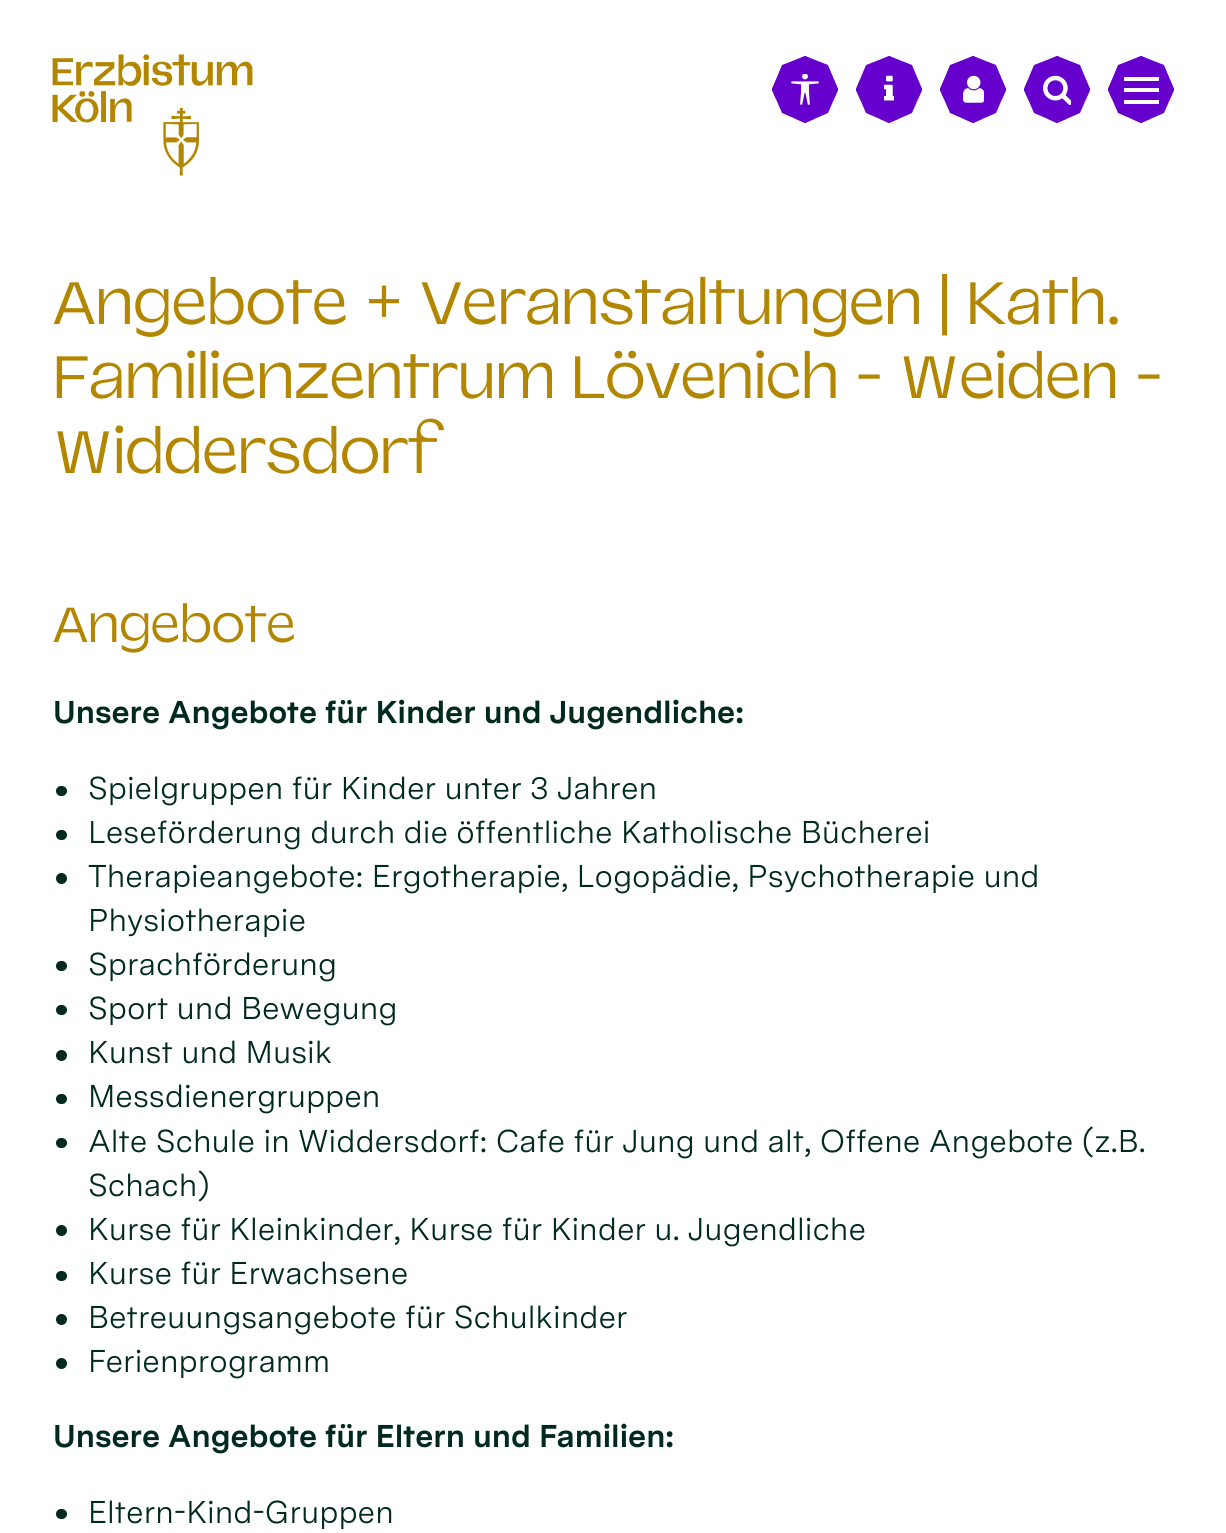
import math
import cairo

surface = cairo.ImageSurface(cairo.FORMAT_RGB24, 1226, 1533)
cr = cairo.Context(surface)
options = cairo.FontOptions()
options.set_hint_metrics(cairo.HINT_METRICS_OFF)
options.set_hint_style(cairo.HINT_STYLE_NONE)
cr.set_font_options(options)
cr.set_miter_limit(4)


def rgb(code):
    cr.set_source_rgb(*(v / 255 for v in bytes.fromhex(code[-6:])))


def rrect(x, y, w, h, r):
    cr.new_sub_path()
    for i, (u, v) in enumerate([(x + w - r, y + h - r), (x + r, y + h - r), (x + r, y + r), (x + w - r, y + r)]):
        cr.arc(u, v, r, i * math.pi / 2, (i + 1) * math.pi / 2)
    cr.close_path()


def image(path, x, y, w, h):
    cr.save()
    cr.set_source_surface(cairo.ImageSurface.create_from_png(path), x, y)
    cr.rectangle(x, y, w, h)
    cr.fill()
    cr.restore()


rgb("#ffffff")
cr.paint()
image("img/1.png", 52, 54, 201, 122)
rgb("#6600cc")
cr.new_path()
cr.move_to(805, 56)
cr.line_to(828, 65)
cr.line_to(838, 89)
cr.line_to(838, 90)
cr.line_to(828, 113)
cr.line_to(805, 123)
cr.line_to(782, 113)
cr.line_to(772, 90)
cr.line_to(772, 89)
cr.line_to(782, 65)
cr.close_path()
cr.fill()
cr.set_fill_rule(cairo.FILL_RULE_EVEN_ODD)
cr.new_path()
cr.move_to(772, 90)
cr.line_to(772, 89)
cr.line_to(776, 80)
cr.line_to(776, 99)
cr.close_path()
cr.move_to(838, 89)
cr.line_to(838, 90)
cr.line_to(834, 99)
cr.line_to(834, 80)
cr.close_path()
cr.move_to(805, 56)
cr.line_to(796, 60)
cr.line_to(814, 60)
cr.close_path()
cr.move_to(814, 119)
cr.line_to(796, 119)
cr.line_to(805, 123)
cr.close_path()
cr.fill()
image("img/2.png", 791, 74, 28, 31)
cr.set_fill_rule(cairo.FILL_RULE_WINDING)
cr.new_path()
cr.move_to(889, 56)
cr.line_to(912, 65)
cr.line_to(922, 89)
cr.line_to(922, 90)
cr.line_to(912, 113)
cr.line_to(889, 123)
cr.line_to(866, 113)
cr.line_to(856, 90)
cr.line_to(856, 89)
cr.line_to(866, 65)
cr.close_path()
cr.fill()
cr.set_fill_rule(cairo.FILL_RULE_EVEN_ODD)
cr.new_path()
cr.move_to(856, 90)
cr.line_to(856, 89)
cr.line_to(860, 80)
cr.line_to(860, 99)
cr.close_path()
cr.move_to(922, 89)
cr.line_to(922, 90)
cr.line_to(918, 99)
cr.line_to(918, 80)
cr.close_path()
cr.move_to(889, 56)
cr.line_to(880, 60)
cr.line_to(898, 60)
cr.close_path()
cr.move_to(898, 119)
cr.line_to(880, 119)
cr.line_to(889, 123)
cr.close_path()
cr.fill()
image("img/3.png", 884, 75, 10, 26)
cr.set_fill_rule(cairo.FILL_RULE_WINDING)
cr.new_path()
cr.move_to(973, 56)
cr.line_to(996, 65)
cr.line_to(1006, 89)
cr.line_to(1006, 90)
cr.line_to(996, 113)
cr.line_to(973, 123)
cr.line_to(950, 113)
cr.line_to(940, 90)
cr.line_to(940, 89)
cr.line_to(950, 65)
cr.close_path()
cr.fill()
cr.set_fill_rule(cairo.FILL_RULE_EVEN_ODD)
cr.new_path()
cr.move_to(940, 90)
cr.line_to(940, 89)
cr.line_to(944, 80)
cr.line_to(944, 99)
cr.close_path()
cr.move_to(1006, 89)
cr.line_to(1006, 90)
cr.line_to(1002, 99)
cr.line_to(1002, 80)
cr.close_path()
cr.move_to(973, 56)
cr.line_to(964, 60)
cr.line_to(982, 60)
cr.close_path()
cr.move_to(982, 119)
cr.line_to(964, 119)
cr.line_to(973, 123)
cr.close_path()
cr.fill()
image("img/4.png", 963, 75, 21, 28)
cr.set_fill_rule(cairo.FILL_RULE_WINDING)
cr.new_path()
cr.move_to(1057, 56)
cr.line_to(1080, 65)
cr.line_to(1090, 89)
cr.line_to(1090, 90)
cr.line_to(1080, 113)
cr.line_to(1057, 123)
cr.line_to(1034, 113)
cr.line_to(1024, 90)
cr.line_to(1024, 89)
cr.line_to(1034, 65)
cr.close_path()
cr.fill()
cr.set_fill_rule(cairo.FILL_RULE_EVEN_ODD)
cr.new_path()
cr.move_to(1024, 90)
cr.line_to(1024, 89)
cr.line_to(1028, 80)
cr.line_to(1028, 99)
cr.close_path()
cr.move_to(1090, 89)
cr.line_to(1090, 90)
cr.line_to(1086, 99)
cr.line_to(1086, 80)
cr.close_path()
cr.move_to(1057, 56)
cr.line_to(1048, 60)
cr.line_to(1066, 60)
cr.close_path()
cr.move_to(1066, 119)
cr.line_to(1048, 119)
cr.line_to(1057, 123)
cr.close_path()
cr.fill()
image("img/5.png", 1043, 75, 28, 30)
cr.set_fill_rule(cairo.FILL_RULE_WINDING)
cr.new_path()
cr.move_to(1141, 56)
cr.line_to(1164, 65)
cr.line_to(1174, 89)
cr.line_to(1174, 90)
cr.line_to(1164, 113)
cr.line_to(1141, 123)
cr.line_to(1118, 113)
cr.line_to(1108, 90)
cr.line_to(1108, 89)
cr.line_to(1118, 65)
cr.close_path()
cr.fill()
cr.set_fill_rule(cairo.FILL_RULE_EVEN_ODD)
cr.new_path()
cr.move_to(1108, 90)
cr.line_to(1108, 89)
cr.line_to(1112, 80)
cr.line_to(1112, 99)
cr.close_path()
cr.move_to(1174, 89)
cr.line_to(1174, 90)
cr.line_to(1170, 99)
cr.line_to(1170, 80)
cr.close_path()
cr.move_to(1141, 56)
cr.line_to(1132, 60)
cr.line_to(1150, 60)
cr.close_path()
cr.move_to(1150, 119)
cr.line_to(1132, 119)
cr.line_to(1141, 123)
cr.close_path()
cr.fill()
for x, y, w, h, color in [
    (1124, 88, 35, 4, "#ffffff"),
    (1124, 77, 35, 4, "#ffffff"),
    (1124, 100, 35, 4, "#ffffff"),
]:
    rgb(color)
    cr.rectangle(x, y, w, h)
    cr.fill()
rgb("#002920")
rrect(56, 786, 11, 10, 5)
cr.fill()
rrect(56, 830, 11, 10, 5)
cr.fill()
cr.arc(61.5, 878.5, 5.5, 0, 2 * math.pi)
cr.fill()
rrect(56, 961, 11, 10, 5)
cr.fill()
rrect(56, 1005, 11, 10, 5)
cr.fill()
cr.arc(61.5, 1055.5, 5.5, 0, 2 * math.pi)
cr.fill()
rrect(56, 1094, 11, 10, 5)
cr.fill()
rrect(56, 1138, 11, 10, 5)
cr.fill()
cr.arc(61.5, 1230.5, 5.5, 0, 2 * math.pi)
cr.fill()
rrect(56, 1271, 11, 10, 5)
cr.fill()
cr.arc(61.5, 1319.5, 5.5, 0, 2 * math.pi)
cr.fill()
cr.arc(61.5, 1363.5, 5.5, 0, 2 * math.pi)
cr.fill()
rrect(56, 1509, 11, 10, 5)
cr.fill()
cr.select_font_face("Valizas")
cr.set_font_size(59.5)
rgb("#b38600")
for x, y, s in [
    (53, 324, "Angebote + Veranstaltungen | Kath."),
    (53, 398, "Familienzentrum Lövenich - Weiden -"),
    (53, 473, "Widdersdorf"),
]:
    cr.move_to(x, y)
    cr.show_text(s)
cr.set_font_size(49)
cr.move_to(53, 642)
cr.show_text("Angebote")
cr.select_font_face("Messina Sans", cairo.FONT_SLANT_NORMAL, cairo.FONT_WEIGHT_BOLD)
cr.set_font_size(31.5)
rgb("#002920")
cr.move_to(53, 723)
cr.show_text("Unsere Angebote für Kinder und Jugendliche:")
cr.select_font_face("Messina Sans")
for x, y, s in [
    (88, 799, "Spielgruppen für Kinder unter 3 Jahren"),
    (88, 843, "Leseförderung durch die öffentliche Katholische Bücherei"),
    (88, 887, "Therapieangebote: Ergotherapie, Logopädie, Psychotherapie und"),
    (88, 931, "Physiotherapie"),
    (88, 975, "Sprachförderung"),
    (88, 1019, "Sport und Bewegung"),
    (88, 1063, "Kunst und Musik"),
    (88, 1107, "Messdienergruppen"),
    (88, 1152, "Alte Schule in Widdersdorf: Cafe für Jung und alt, Offene Angebote (z.B."),
    (88, 1196, "Schach)"),
    (88, 1240, "Kurse für Kleinkinder, Kurse für Kinder u. Jugendliche"),
    (88, 1284, "Kurse für Erwachsene"),
    (88, 1328, "Betreuungsangebote für Schulkinder"),
    (88, 1372, "Ferienprogramm"),
]:
    cr.move_to(x, y)
    cr.show_text(s)
cr.select_font_face("Messina Sans", cairo.FONT_SLANT_NORMAL, cairo.FONT_WEIGHT_BOLD)
cr.move_to(53, 1447)
cr.show_text("Unsere Angebote für Eltern und Familien:")
cr.select_font_face("Messina Sans")
cr.move_to(88, 1523)
cr.show_text("Eltern-Kind-Gruppen")
surface.write_to_png("page.png")
